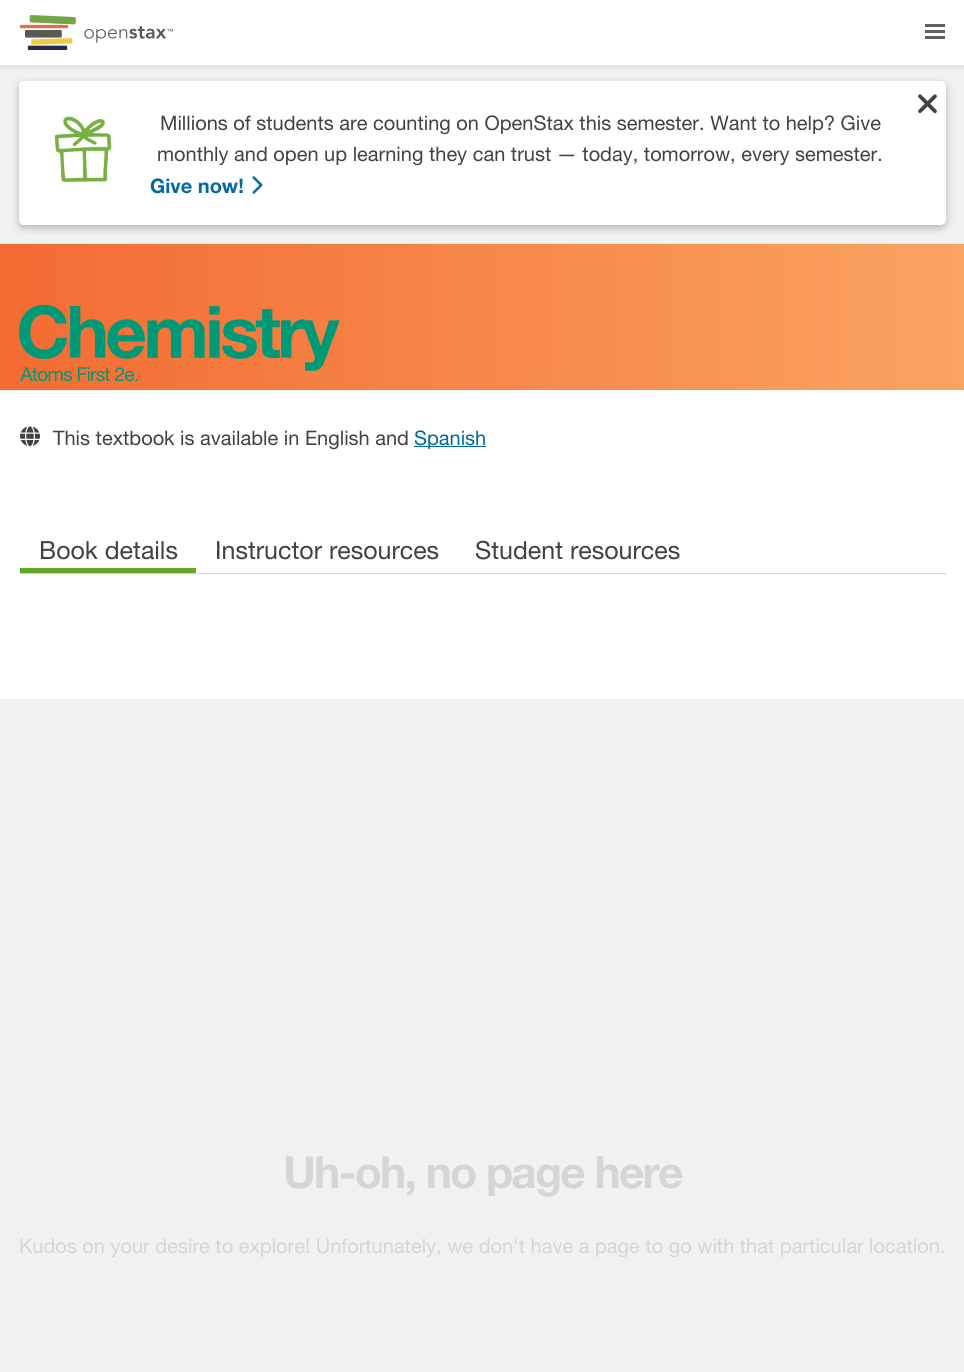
import math
import cairo

surface = cairo.ImageSurface(cairo.FORMAT_RGB24, 964, 1372)
cr = cairo.Context(surface)
options = cairo.FontOptions()
options.set_hint_metrics(cairo.HINT_METRICS_OFF)
options.set_hint_style(cairo.HINT_STYLE_NONE)
cr.set_font_options(options)
cr.set_miter_limit(4)


def rgb(code):
    cr.set_source_rgb(*(v / 255 for v in bytes.fromhex(code[-6:])))


def tracked(x, y, s, letter, word):
    cr.move_to(x, y)
    for ch in s:
        cr.show_text(ch)
        cr.rel_move_to(letter + word * (ch == ' '), 0)


def rrect(x, y, w, h, r):
    cr.new_sub_path()
    for i, (u, v) in enumerate([(x + w - r, y + h - r), (x + r, y + h - r), (x + r, y + r), (x + w - r, y + r)]):
        cr.arc(u, v, r, i * math.pi / 2, (i + 1) * math.pi / 2)
    cr.close_path()


def soft_shadow(x, y, w, h, r, blur, alpha):
    cr.push_group_with_content(cairo.CONTENT_ALPHA)
    cr.set_operator(cairo.OPERATOR_SOURCE)
    for i in range(15, -16, -2):
        e = blur * i / 6
        if min(w, h) + 2 * e > 0:
            cr.set_source_rgba(0, 0, 0, alpha * math.erfc((i - 1) / 8.5) / 2)
            rrect(x - e, y - e, w + 2 * e, h + 2 * e, max(0, min(r + e + blur * .6, min(w, h) / 2 + e)))
            cr.fill()
    cr.mask(cr.pop_group())


def image(path, x, y, w, h):
    cr.save()
    cr.set_source_surface(cairo.ImageSurface.create_from_png(path), x, y)
    cr.rectangle(x, y, w, h)
    cr.fill()
    cr.restore()


rgb("#f1f1f1")
cr.paint()
rgb("#ffffff")
cr.rectangle(0, 0, 964, 65)
cr.fill()
cr.save()
cr.rectangle(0, 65, 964, 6)
cr.clip()
rgb("#5e6162")
soft_shadow(-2, -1, 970, 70, 0, 2, 0.1)
cr.restore()
image("img/1.png", 20, 15, 153, 35)
for x, y, w, h, color in [
    (925, 30, 20, 3, "#5e6162"),
    (925, 24, 20, 3, "#5e6162"),
    (925, 36, 20, 3, "#5e6162"),
]:
    rgb(color)
    cr.rectangle(x, y, w, h)
    cr.fill()
rgb("#000000")
soft_shadow(19, 84, 927, 144, 5, 4, 0.25)
rgb("#ffffff")
rrect(19, 81, 927, 144, 5)
cr.fill()
image("img/2.png", 918, 94, 19, 20)
image("img/3.png", 54, 116, 58, 66)
image("img/4.png", 252, 176, 11, 18)
cr.rectangle(0, 390, 964, 309)
cr.fill()
gradient = cairo.LinearGradient(0, 317, 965, 317)
gradient.add_color_stop_rgba(0, 0.953, 0.42, 0.196, 1)
gradient.add_color_stop_rgba(1, 0.98, 0.643, 0.38, 1)
cr.set_source(gradient)
cr.rectangle(0, 244, 964, 146)
cr.fill()
image("img/5.png", 19, 304, 321, 78)
image("img/6.png", 20, 426, 20, 21)
for x, y, w, h, color in [
    (414, 446, 72, 1, "#026aa1"),
    (20, 568, 176, 5, "#63a524"),
    (20, 573, 926, 1, "#d5d5d5"),
]:
    rgb(color)
    cr.rectangle(x, y, w, h)
    cr.fill()
cr.select_font_face("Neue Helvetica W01")
cr.set_font_size(20)
rgb("#424242")
cr.move_to(160, 130)
cr.show_text("Millions of students are counting on OpenStax this semester. Want to help? Give")
cr.move_to(157, 161)
cr.show_text("monthly and open up learning they can trust — today, tomorrow, every semester.")
cr.select_font_face("Neue Helvetica W01", cairo.FONT_SLANT_NORMAL, cairo.FONT_WEIGHT_BOLD)
rgb("#026aa1")
cr.move_to(150, 193)
cr.show_text("Give now!")
cr.select_font_face("Neue Helvetica W01")
rgb("#424242")
cr.move_to(53, 445)
cr.show_text("This textbook is available in English and")
rgb("#026aa1")
cr.move_to(414, 445)
cr.show_text("Spanish")
cr.set_font_size(25)
rgb("#424242")
for x, y, s in [
    (39, 559, "Book details"),
    (215, 559, "Instructor resources"),
    (475, 559, "Student resources"),
]:
    cr.move_to(x, y)
    cr.show_text(s)
cr.select_font_face("Neue Helvetica W01", cairo.FONT_SLANT_NORMAL, cairo.FONT_WEIGHT_BOLD)
cr.set_font_size(44.25)
rgb("#d5d5d5")
tracked(283, 1188, "Uh-oh, no page here", -1.75, 0)
cr.select_font_face("Neue Helvetica W01")
cr.set_font_size(20)
cr.move_to(19, 1253)
cr.show_text("Kudos on your desire to explore! Unfortunately, we don't have a page to go with that particular location.")
surface.write_to_png("page.png")
